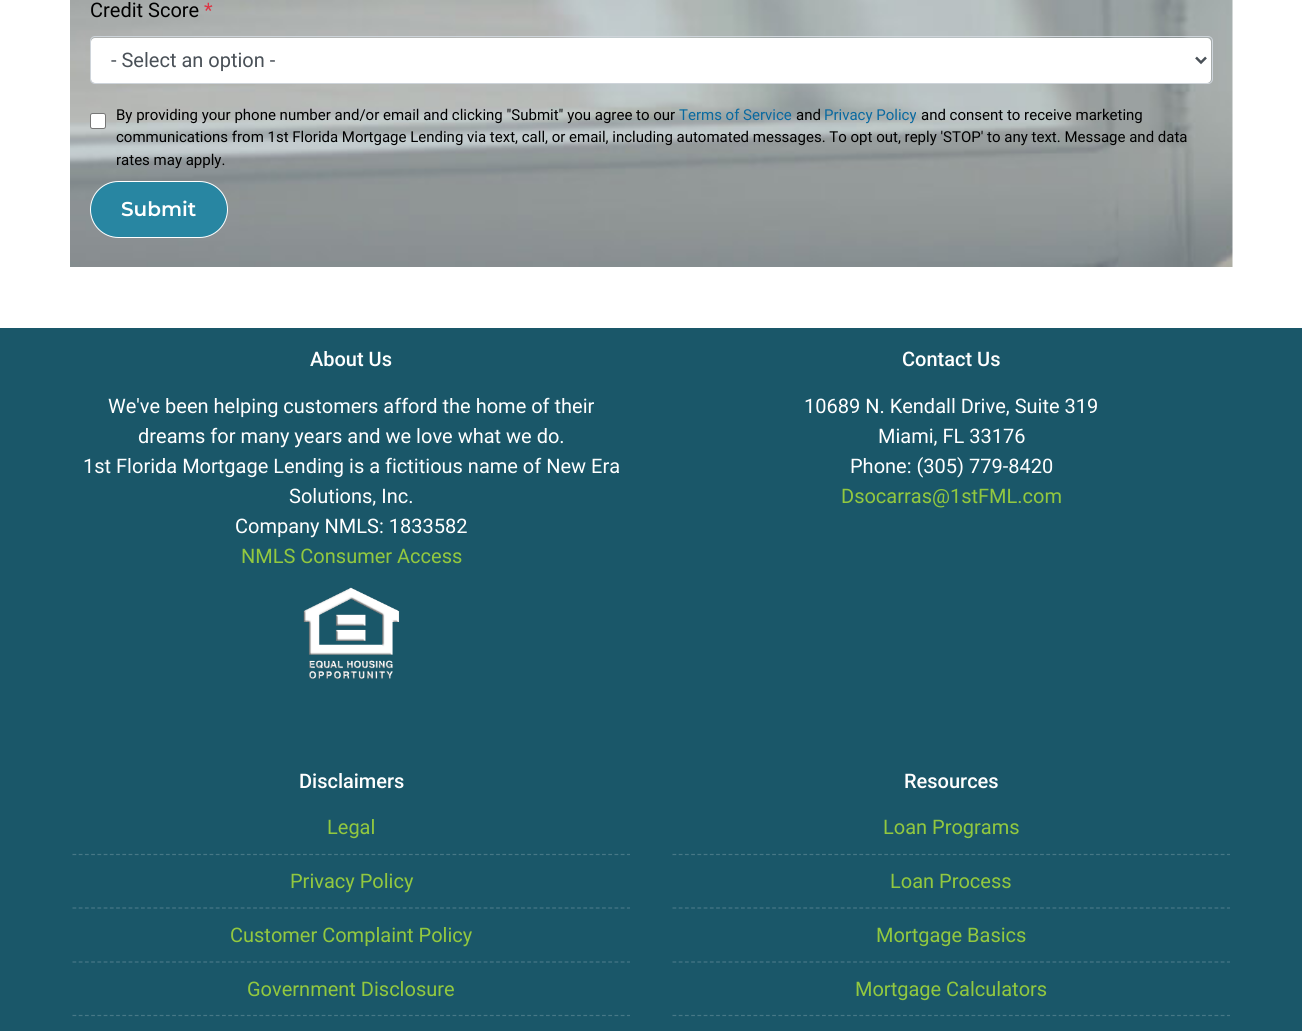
import math
import cairo

surface = cairo.ImageSurface(cairo.FORMAT_RGB24, 1302, 1031)
cr = cairo.Context(surface)
options = cairo.FontOptions()
options.set_hint_metrics(cairo.HINT_METRICS_OFF)
options.set_hint_style(cairo.HINT_STYLE_NONE)
cr.set_font_options(options)
cr.set_miter_limit(4)


def rgb(code):
    cr.set_source_rgb(*(v / 255 for v in bytes.fromhex(code[-6:])))


def rrect(x, y, w, h, r):
    cr.new_sub_path()
    for i, (u, v) in enumerate([(x + w - r, y + h - r), (x + r, y + h - r), (x + r, y + r), (x + w - r, y + r)]):
        cr.arc(u, v, r, i * math.pi / 2, (i + 1) * math.pi / 2)
    cr.close_path()


def image(path, x, y, w, h):
    cr.save()
    cr.set_source_surface(cairo.ImageSurface.create_from_png(path), x, y)
    cr.rectangle(x, y, w, h)
    cr.fill()
    cr.restore()


rgb("#ffffff")
cr.paint()
image("img/1.png", 70, 0, 1163, 267)
rgb("#ffffff")
rrect(91, 38, 1120, 45, 4)
cr.fill()
rrect(90.5, 36.5, 1122, 47, 4.5)
rgb("#ced4da")
cr.set_line_width(1)
cr.stroke()
cr.new_path()
cr.move_to(1196, 57.5)
cr.line_to(1201, 62.5)
cr.line_to(1206, 57.5)
rgb("#495057")
cr.set_line_width(2.5)
cr.stroke()
rgb("#ffffff")
rrect(90.5, 113.5, 15, 15, 2)
cr.fill_preserve()
rgb("#767676")
cr.set_line_width(1)
cr.stroke()
rgb("#2886a2")
rrect(90.5, 181.5, 137, 56, 28)
cr.fill_preserve()
rgb("#ffffff")
cr.stroke()
rgb("#1a5769")
cr.rectangle(0, 328, 1302, 703)
cr.fill()
image("img/2.png", 303, 587, 97, 92)
cr.new_path()
cr.move_to(72.5, 854.5)
cr.line_to(630, 854.5)
rgb("#477886")
cr.set_line_width(1.2)
cr.set_dash([3.75, 2.48])
cr.stroke()
cr.new_path()
cr.move_to(72.5, 908)
cr.line_to(630, 908)
cr.stroke()
cr.new_path()
cr.move_to(72.5, 962)
cr.line_to(630, 962)
cr.stroke()
cr.new_path()
cr.move_to(72.5, 1015.5)
cr.line_to(630, 1015.5)
cr.stroke()
cr.new_path()
cr.move_to(672.5, 854.5)
cr.line_to(1230, 854.5)
cr.stroke()
cr.new_path()
cr.move_to(672.5, 908)
cr.line_to(1230, 908)
cr.stroke()
cr.new_path()
cr.move_to(672.5, 962)
cr.line_to(1230, 962)
cr.stroke()
cr.new_path()
cr.move_to(672.5, 1015.5)
cr.line_to(1230, 1015.5)
cr.stroke()
cr.select_font_face("Roboto")
cr.set_font_size(20)
rgb("#000000")
cr.move_to(90, 17)
cr.show_text("Credit Score")
rgb("#dc3545")
cr.move_to(204, 17)
cr.show_text("*")
rgb("#495057")
cr.move_to(111, 67)
cr.show_text("- Select an option -")
cr.set_font_size(15)
rgb("#000000")
cr.move_to(116, 120)
cr.show_text("By providing your phone number and/or email and clicking \"Submit\" you agree to our")
rgb("#0969a0")
cr.move_to(679, 120)
cr.show_text("Terms of Service")
rgb("#000000")
cr.move_to(796, 120)
cr.show_text("and")
rgb("#0969a0")
cr.move_to(824, 120)
cr.show_text("Privacy Policy")
rgb("#000000")
for x, y, s in [
    (921, 120, "and consent to receive marketing"),
    (116, 142, "communications from 1st Florida Mortgage Lending via text, call, or email, including automated messages. To opt out, reply 'STOP' to any text. Message and data"),
    (116, 165, "rates may apply."),
]:
    cr.move_to(x, y)
    cr.show_text(s)
cr.select_font_face("Montserrat SemiBold")
cr.set_font_size(20)
rgb("#ffffff")
cr.move_to(121, 216)
cr.show_text("Submit")
cr.select_font_face("Roboto Medium")
cr.move_to(310, 366)
cr.show_text("About Us")
cr.select_font_face("Roboto")
for x, y, s in [
    (108, 413, "We've been helping customers afford the home of their"),
    (138, 443, "dreams for many years and we love what we do."),
    (83, 473, "1st Florida Mortgage Lending is a fictitious name of New Era"),
    (289, 503, "Solutions, Inc."),
    (235, 533, "Company NMLS: 1833582"),
]:
    cr.move_to(x, y)
    cr.show_text(s)
rgb("#92c83f")
cr.move_to(241, 563)
cr.show_text("NMLS Consumer Access")
cr.select_font_face("Roboto Medium")
rgb("#ffffff")
cr.move_to(902, 366)
cr.show_text("Contact Us")
cr.select_font_face("Roboto")
for x, y, s in [
    (804, 413, "10689 N. Kendall Drive, Suite 319"),
    (878, 443, "Miami, FL 33176"),
    (850, 473, "Phone: (305) 779-8420"),
]:
    cr.move_to(x, y)
    cr.show_text(s)
rgb("#92c83f")
cr.move_to(841, 503)
cr.show_text("Dsocarras@1stFML.com")
cr.select_font_face("Roboto Medium")
rgb("#ffffff")
cr.move_to(299, 788)
cr.show_text("Disclaimers")
cr.select_font_face("Roboto")
rgb("#92c83f")
for x, y, s in [
    (327, 834, "Legal"),
    (290, 888, "Privacy Policy"),
    (230, 942, "Customer Complaint Policy"),
    (247, 996, "Government Disclosure"),
]:
    cr.move_to(x, y)
    cr.show_text(s)
cr.select_font_face("Roboto Medium")
rgb("#ffffff")
cr.move_to(904, 788)
cr.show_text("Resources")
cr.select_font_face("Roboto")
rgb("#92c83f")
for x, y, s in [
    (883, 834, "Loan Programs"),
    (890, 888, "Loan Process"),
    (876, 942, "Mortgage Basics"),
    (855, 996, "Mortgage Calculators"),
]:
    cr.move_to(x, y)
    cr.show_text(s)
surface.write_to_png("page.png")
